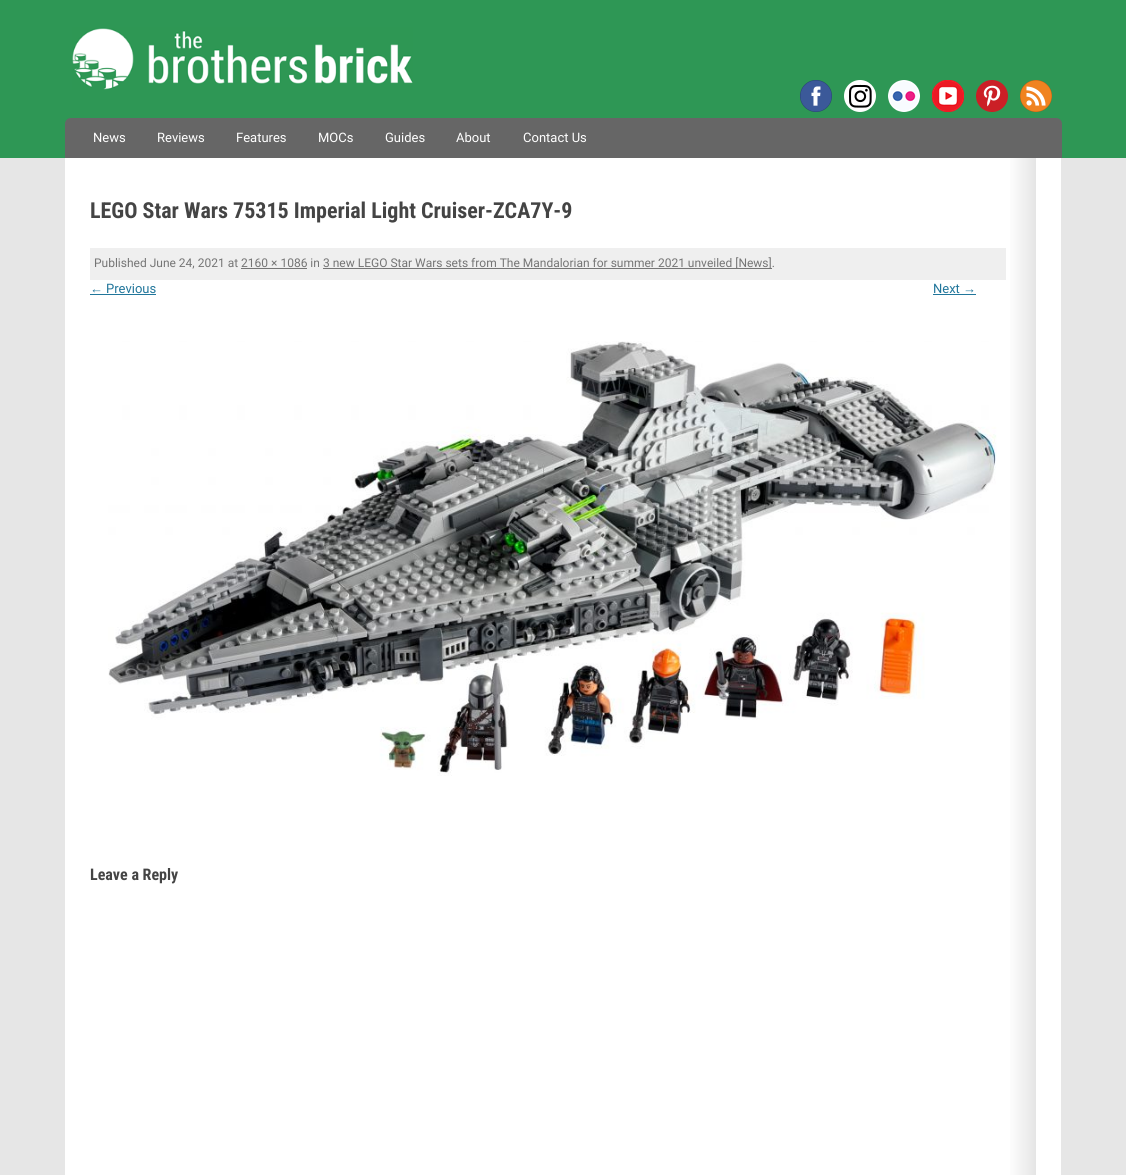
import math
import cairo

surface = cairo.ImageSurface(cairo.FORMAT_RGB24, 1126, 1175)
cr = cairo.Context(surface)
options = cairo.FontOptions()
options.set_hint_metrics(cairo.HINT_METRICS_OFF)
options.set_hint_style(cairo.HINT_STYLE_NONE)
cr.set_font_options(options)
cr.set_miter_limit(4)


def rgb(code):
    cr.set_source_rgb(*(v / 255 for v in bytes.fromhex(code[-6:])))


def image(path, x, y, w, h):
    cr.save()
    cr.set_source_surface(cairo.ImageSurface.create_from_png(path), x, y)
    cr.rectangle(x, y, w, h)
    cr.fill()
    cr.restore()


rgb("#e6e6e6")
cr.paint()
rgb("#2e9755")
cr.rectangle(0, 0, 1126, 158)
cr.fill()
image("img/1.png", 72, 27, 341, 63)
image("img/2.png", 800, 80, 32, 32)
rgb("#ffffff")
cr.arc(860, 96, 16, 0, 2 * math.pi)
cr.fill()
image("img/3.png", 849, 84, 23, 24)
image("img/4.png", 888, 80, 32, 32)
image("img/5.png", 932, 80, 32, 32)
image("img/6.png", 976, 80, 32, 32)
image("img/7.png", 1020, 80, 32, 32)
rgb("#666666")
cr.new_path()
cr.move_to(71, 118)
cr.line_to(1056, 118)
cr.curve_to(1059.5, 118, 1062, 120.5, 1062, 124)
cr.line_to(1062, 158)
cr.line_to(65, 158)
cr.line_to(65, 124)
cr.curve_to(65, 120.5, 67.5, 118, 71, 118)
cr.close_path()
cr.fill()
rgb("#ffffff")
cr.rectangle(65, 158, 996, 1017)
cr.fill()
gradient = cairo.LinearGradient(90, 780, 1036, 780)
gradient.add_color_stop_rgba(0.97, 1, 1, 1, 1)
gradient.add_color_stop_rgba(1, 0.898, 0.898, 0.898, 1)
cr.set_source(gradient)
cr.rectangle(1010, 158, 26, 1017)
cr.fill()
for x, y, w, h, color in [
    (90, 248, 916, 32, "#efefef"),
    (323, 268, 449, 1, "#757575"),
    (241, 268, 66, 1, "#757575"),
    (90, 294, 66, 1, "#21769b"),
    (933, 294, 43, 1, "#21769b"),
]:
    rgb(color)
    cr.rectangle(x, y, w, h)
    cr.fill()
image("img/8.png", 108, 341, 889, 435)
cr.select_font_face("Roboto")
cr.set_font_size(13)
rgb("#ffffff")
for x, y, s in [
    (93, 142, "News"),
    (157, 142, "Reviews"),
    (236, 142, "Features"),
    (318, 142, "MOCs"),
    (385, 142, "Guides"),
    (456, 142, "About"),
    (523, 142, "Contact Us"),
]:
    cr.move_to(x, y)
    cr.show_text(s)
cr.select_font_face("Roboto Condensed", cairo.FONT_SLANT_NORMAL, cairo.FONT_WEIGHT_BOLD)
cr.set_font_size(22)
rgb("#444444")
cr.move_to(90, 218)
cr.show_text("LEGO Star Wars 75315 Imperial Light Cruiser-ZCA7Y-9")
cr.select_font_face("Roboto")
cr.set_font_size(12)
rgb("#757575")
cr.move_to(94, 267)
cr.show_text("Published June 24, 2021 at 2160 × 1086 in")
cr.move_to(323, 267)
cr.show_text("3 new LEGO Star Wars sets from The Mandalorian for summer 2021 unveiled [News].")
cr.select_font_face("Liberation Sans")
cr.set_font_size(13)
rgb("#21769b")
cr.move_to(90, 293)
cr.show_text("←")
cr.select_font_face("Roboto")
cr.move_to(106, 293)
cr.show_text("Previous")
cr.move_to(933, 293)
cr.show_text("Next")
cr.select_font_face("Liberation Sans")
cr.move_to(963, 293)
cr.show_text("→")
cr.select_font_face("Roboto Condensed", cairo.FONT_SLANT_NORMAL, cairo.FONT_WEIGHT_BOLD)
cr.set_font_size(16)
rgb("#444444")
cr.move_to(90, 880)
cr.show_text("Leave a Reply")
surface.write_to_png("page.png")
